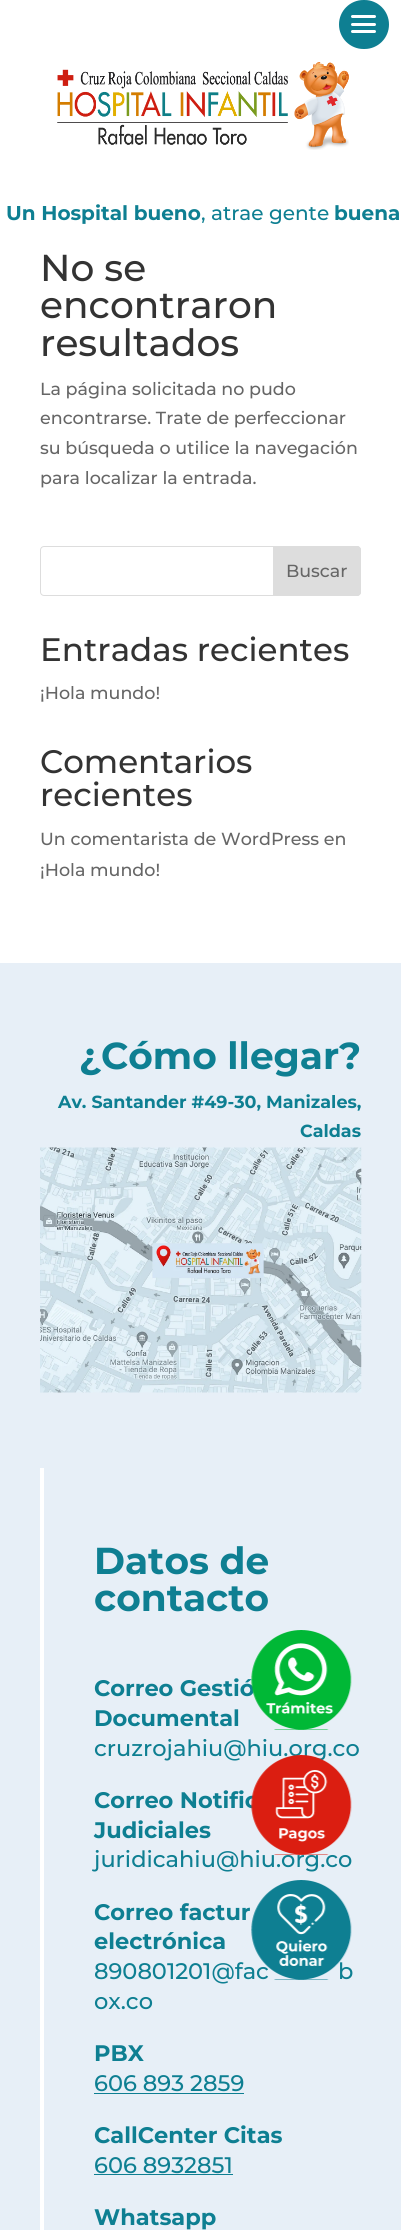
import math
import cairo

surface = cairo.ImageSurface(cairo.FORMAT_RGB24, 401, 2230)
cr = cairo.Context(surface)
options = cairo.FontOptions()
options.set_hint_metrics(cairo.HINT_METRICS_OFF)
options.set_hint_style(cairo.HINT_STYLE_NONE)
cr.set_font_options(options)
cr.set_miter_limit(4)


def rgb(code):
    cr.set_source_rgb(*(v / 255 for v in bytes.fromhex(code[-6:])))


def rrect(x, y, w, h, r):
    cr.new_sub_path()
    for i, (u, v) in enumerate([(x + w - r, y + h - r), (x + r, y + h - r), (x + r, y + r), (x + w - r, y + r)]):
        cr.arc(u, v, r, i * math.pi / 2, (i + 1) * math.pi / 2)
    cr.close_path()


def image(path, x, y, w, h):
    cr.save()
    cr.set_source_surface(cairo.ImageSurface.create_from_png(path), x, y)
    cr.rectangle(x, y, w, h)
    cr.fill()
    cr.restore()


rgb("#ffffff")
cr.paint()
rgb("#0e7f92")
rrect(339, 0, 50, 49, 24.5)
cr.fill()
rgb("#ffffff")
rrect(351, 23, 25, 3, 1.5)
cr.fill()
rrect(351, 15, 25, 3, 1.5)
cr.fill()
rrect(351, 30, 25, 3, 1.5)
cr.fill()
image("img/1.png", 57, 62, 292, 88)
rrect(40.5, 546.5, 320, 49, 3.5)
rgb("#dddddd")
cr.set_line_width(1)
cr.stroke()
cr.new_path()
cr.move_to(273.5, 546.5)
cr.line_to(357, 546.5)
cr.curve_to(359, 546.5, 360.5, 548, 360.5, 550)
cr.line_to(360.5, 592)
cr.curve_to(360.5, 594, 359, 595.5, 357, 595.5)
cr.line_to(273.5, 595.5)
cr.close_path()
cr.fill_preserve()
cr.stroke()
rgb("#e7eff7")
cr.rectangle(0, 963, 401, 1267)
cr.fill()
image("img/2.png", 40, 1147, 322, 246)
for x, y, w, h, color in [
    (40, 1468, 4, 762, "#ffffff"),
    (94, 2093, 150, 1, "#0e7f92"),
    (94, 2174, 139, 1, "#0e7f92"),
]:
    rgb(color)
    cr.rectangle(x, y, w, h)
    cr.fill()
cr.select_font_face("Montserrat", cairo.FONT_SLANT_NORMAL, cairo.FONT_WEIGHT_BOLD)
cr.set_font_size(20)
cr.move_to(6, 220)
cr.show_text("Un Hospital bueno")
cr.select_font_face("Montserrat Medium")
cr.move_to(201, 220)
cr.show_text(", atrae gente")
cr.select_font_face("Montserrat", cairo.FONT_SLANT_NORMAL, cairo.FONT_WEIGHT_BOLD)
cr.move_to(334, 220)
cr.show_text("buena")
cr.select_font_face("Montserrat Medium")
cr.set_font_size(37.5)
rgb("#333333")
for x, y, s in [
    (40, 281, "No se"),
    (40, 318, "encontraron"),
    (40, 356, "resultados"),
]:
    cr.move_to(x, y)
    cr.show_text(s)
cr.set_font_size(17.5)
rgb("#666666")
for x, y, s in [
    (40, 395, "La página solicitada no pudo"),
    (40, 424, "encontrarse. Trate de perfeccionar"),
    (40, 454, "su búsqueda o utilice la navegación"),
    (40, 484, "para localizar la entrada."),
    (286, 577, "Buscar"),
]:
    cr.move_to(x, y)
    cr.show_text(s)
cr.set_font_size(32.5)
rgb("#333333")
cr.move_to(40, 661)
cr.show_text("Entradas recientes")
cr.set_font_size(17.5)
rgb("#666666")
cr.move_to(40, 699)
cr.show_text("¡Hola mundo!")
cr.set_font_size(32.5)
rgb("#333333")
cr.move_to(40, 773)
cr.show_text("Comentarios")
cr.move_to(40, 806)
cr.show_text("recientes")
cr.set_font_size(17.5)
rgb("#666666")
cr.move_to(40, 845)
cr.show_text("Un comentarista de WordPress en")
cr.move_to(40, 876)
cr.show_text("¡Hola mundo!")
cr.select_font_face("Montserrat", cairo.FONT_SLANT_NORMAL, cairo.FONT_WEIGHT_BOLD)
cr.set_font_size(37.5)
rgb("#0e7f92")
cr.move_to(79, 1069)
cr.show_text("¿Cómo llegar?")
cr.set_font_size(17.5)
cr.move_to(58, 1108)
cr.show_text("Av. Santander #49-30, Manizales,")
cr.move_to(300, 1137)
cr.show_text("Caldas")
cr.set_font_size(37.5)
cr.move_to(94, 1574)
cr.show_text("Datos de")
cr.move_to(94, 1611)
cr.show_text("contacto")
cr.set_font_size(22.5)
cr.move_to(94, 1696)
cr.show_text("Correo Gestió")
cr.move_to(94, 1726)
cr.show_text("Documental")
cr.select_font_face("Montserrat Medium")
cr.move_to(94, 1756)
cr.show_text("cruzrojahiu@hiu.org.co")
cr.select_font_face("Montserrat", cairo.FONT_SLANT_NORMAL, cairo.FONT_WEIGHT_BOLD)
cr.move_to(94, 1808)
cr.show_text("Correo Notific")
cr.move_to(94, 1838)
cr.show_text("Judiciales")
cr.select_font_face("Montserrat Medium")
cr.move_to(94, 1867)
cr.show_text("juridicahiu@hiu.org.co")
cr.select_font_face("Montserrat", cairo.FONT_SLANT_NORMAL, cairo.FONT_WEIGHT_BOLD)
cr.move_to(94, 1920)
cr.show_text("Correo factur")
cr.move_to(94, 1949)
cr.show_text("electrónica")
cr.select_font_face("Montserrat Medium")
for x, y, s in [
    (94, 1979, "890801201@fac"),
    (338, 1979, "b"),
    (94, 2009, "ox.co"),
]:
    cr.move_to(x, y)
    cr.show_text(s)
cr.select_font_face("Montserrat", cairo.FONT_SLANT_NORMAL, cairo.FONT_WEIGHT_BOLD)
cr.move_to(94, 2061)
cr.show_text("PBX")
cr.select_font_face("Montserrat Medium")
cr.move_to(94, 2091)
cr.show_text("606 893 2859")
cr.select_font_face("Montserrat", cairo.FONT_SLANT_NORMAL, cairo.FONT_WEIGHT_BOLD)
cr.move_to(94, 2143)
cr.show_text("CallCenter Citas")
cr.select_font_face("Montserrat Medium")
cr.move_to(94, 2173)
cr.show_text("606 8932851")
cr.select_font_face("Montserrat", cairo.FONT_SLANT_NORMAL, cairo.FONT_WEIGHT_BOLD)
cr.move_to(94, 2225)
cr.show_text("Whatsapp")
image("img/3.png", 251, 1630, 101, 100)
image("img/4.png", 251, 1755, 101, 100)
image("img/5.png", 251, 1880, 101, 100)
surface.write_to_png("page.png")
